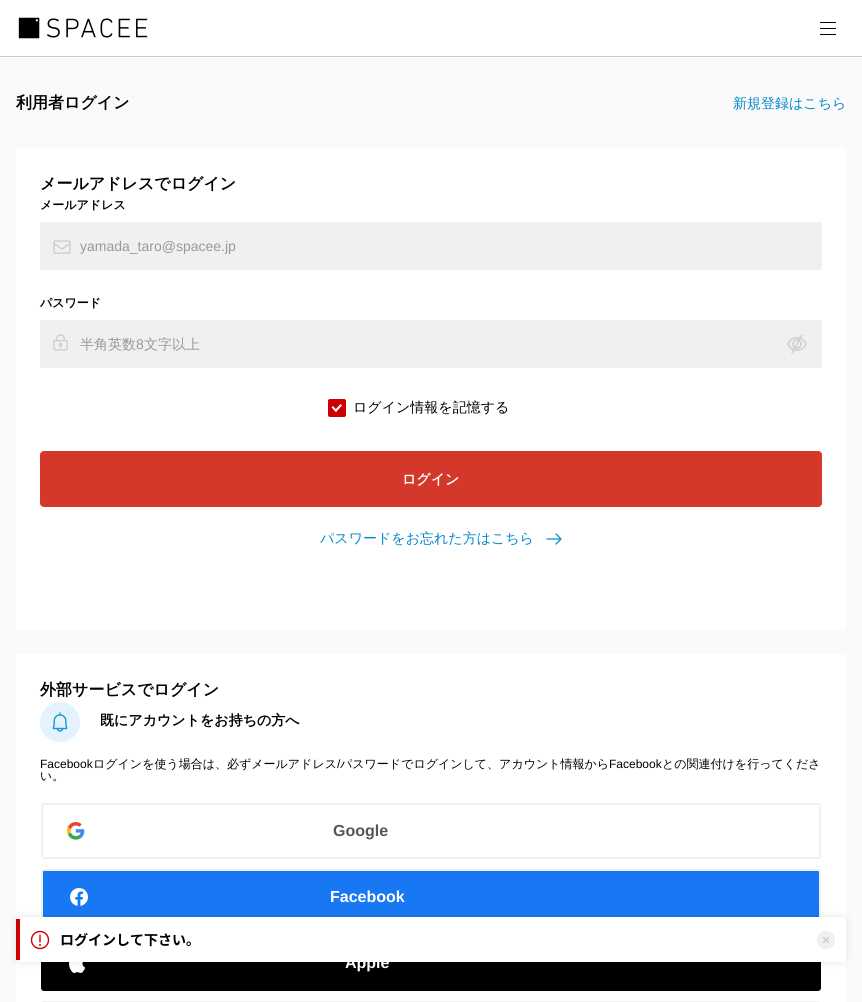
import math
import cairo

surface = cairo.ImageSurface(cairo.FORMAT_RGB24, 862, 1002)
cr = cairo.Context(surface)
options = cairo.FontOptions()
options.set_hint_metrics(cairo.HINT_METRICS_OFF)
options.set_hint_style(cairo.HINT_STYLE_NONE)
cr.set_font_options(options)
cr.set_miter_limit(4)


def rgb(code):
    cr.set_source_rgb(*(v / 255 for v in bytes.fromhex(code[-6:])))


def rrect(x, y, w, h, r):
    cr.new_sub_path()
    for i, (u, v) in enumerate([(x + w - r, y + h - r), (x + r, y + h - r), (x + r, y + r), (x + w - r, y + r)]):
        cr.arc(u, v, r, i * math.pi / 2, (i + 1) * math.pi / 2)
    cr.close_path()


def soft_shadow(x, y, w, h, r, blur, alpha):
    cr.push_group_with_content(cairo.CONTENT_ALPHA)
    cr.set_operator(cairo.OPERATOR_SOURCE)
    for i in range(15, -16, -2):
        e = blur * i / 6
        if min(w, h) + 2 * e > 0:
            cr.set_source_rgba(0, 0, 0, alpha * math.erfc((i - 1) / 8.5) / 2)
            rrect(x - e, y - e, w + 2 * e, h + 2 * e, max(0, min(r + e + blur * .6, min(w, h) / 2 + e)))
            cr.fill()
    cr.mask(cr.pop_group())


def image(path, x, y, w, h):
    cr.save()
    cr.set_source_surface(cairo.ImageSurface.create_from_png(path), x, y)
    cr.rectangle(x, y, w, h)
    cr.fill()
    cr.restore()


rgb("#fafafa")
cr.paint()
rgb("#ffffff")
cr.rectangle(0, 0, 862, 56)
cr.fill()
rgb("#cccccc")
cr.rectangle(0, 56, 862, 1)
cr.fill()
image("img/1.png", 18, 17, 130, 22)
for x, y, w, h, color in [
    (820, 22, 16, 1, "#000000"),
    (820, 28, 16, 1, "#000000"),
    (820, 34, 16, 1, "#000000"),
    (16, 148, 830, 482, "#ffffff"),
]:
    rgb(color)
    cr.rectangle(x, y, w, h)
    cr.fill()
rgb("#f0f0f0")
rrect(40, 222, 782, 48, 2)
cr.fill()
image("img/2.png", 53, 240, 18, 14)
rrect(40, 320, 782, 48, 2)
cr.fill()
image("img/3.png", 53, 334, 15, 17)
image("img/4.png", 787, 334, 20, 20)
rgb("#cc0000")
rrect(328.5, 399.5, 17, 17, 1.5)
cr.fill_preserve()
cr.set_line_width(1)
cr.stroke()
rgb("#ffffff")
cr.new_path()
cr.move_to(340.5, 404)
cr.line_to(342, 405.5)
cr.line_to(336, 412)
cr.line_to(334.5, 410.5)
cr.close_path()
cr.fill()
cr.new_path()
cr.move_to(333, 406)
cr.line_to(337, 410.5)
cr.line_to(336, 412)
cr.line_to(331.5, 407.5)
cr.close_path()
cr.fill()
rgb("#d3382a")
rrect(40.5, 451.5, 781, 55, 3.5)
cr.fill_preserve()
cr.stroke()
cr.new_path()
cr.move_to(547, 539)
cr.line_to(561, 539)
cr.move_to(561, 539)
cr.line_to(556, 544)
cr.move_to(561, 539)
cr.line_to(556, 534)
rgb("#1a96d5")
cr.set_line_width(1.4)
cr.set_line_cap(cairo.LINE_CAP_ROUND)
cr.set_line_join(cairo.LINE_JOIN_ROUND)
cr.stroke()
rgb("#ffffff")
cr.rectangle(16, 654, 830, 348)
cr.fill()
rgb("#e3f2fd")
cr.arc(60, 722, 20, 0, 2 * math.pi)
cr.fill()
image("img/5.png", 52, 712, 16, 20)
rrect(42, 804, 778, 54, 2)
rgb("#f0f0f0")
cr.set_line_width(2)
cr.set_line_cap(cairo.LINE_CAP_BUTT)
cr.set_line_join(cairo.LINE_JOIN_MITER)
cr.stroke()
image("img/6.png", 67, 822, 18, 18)
rgb("#1877f2")
rrect(42, 870, 778, 54, 2)
cr.fill_preserve()
rgb("#f0f0f0")
cr.stroke()
image("img/7.png", 70, 888, 18, 18)
rgb("#000000")
rrect(41, 935, 780, 56, 3)
cr.fill()
image("img/8.png", 69, 962, 17, 11)
rrect(42, 1002, 778, 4, 2)
rgb("#f0f0f0")
cr.stroke()
rgb("#000000")
soft_shadow(16, 917, 830, 45, 4, 4, 0.1)
rgb("#ffffff")
cr.new_path()
cr.move_to(20, 917)
cr.line_to(846, 917)
cr.line_to(846, 962)
cr.line_to(20, 962)
cr.curve_to(18, 962, 16, 960, 16, 958)
cr.line_to(16, 921)
cr.curve_to(16, 919, 18, 917, 20, 917)
cr.close_path()
cr.fill()
rgb("#cc0000")
cr.rectangle(16, 919, 4, 41)
cr.fill()
image("img/9.png", 30, 930, 20, 20)
image("img/10.png", 817, 931, 18, 18)
cr.select_font_face("WenQuanYi Zen Hei", cairo.FONT_SLANT_NORMAL, cairo.FONT_WEIGHT_BOLD)
cr.set_font_size(16)
rgb("#000000")
cr.move_to(16, 108)
cr.show_text("利用者ログイン")
cr.select_font_face("WenQuanYi Zen Hei Medium")
cr.set_font_size(14)
rgb("#0088cc")
cr.move_to(733, 108)
cr.show_text("新規登録はこちら")
cr.select_font_face("WenQuanYi Zen Hei", cairo.FONT_SLANT_NORMAL, cairo.FONT_WEIGHT_BOLD)
cr.set_font_size(16)
rgb("#000000")
cr.move_to(40, 189)
cr.show_text("メールアドレスでログイン")
cr.set_font_size(12)
cr.move_to(40, 209)
cr.show_text("メールアドレス")
cr.select_font_face("Liberation Sans")
cr.set_font_size(14)
rgb("#999999")
cr.move_to(80, 251)
cr.show_text("yamada_taro@spacee.jp")
cr.select_font_face("WenQuanYi Zen Hei", cairo.FONT_SLANT_NORMAL, cairo.FONT_WEIGHT_BOLD)
cr.set_font_size(12)
rgb("#000000")
cr.move_to(40, 307)
cr.show_text("パスワード")
cr.select_font_face("WenQuanYi Zen Hei Medium")
cr.set_font_size(14)
rgb("#999999")
cr.move_to(80, 349)
cr.show_text("半角英数")
cr.select_font_face("Liberation Sans")
cr.move_to(136, 349)
cr.show_text("8")
cr.select_font_face("WenQuanYi Zen Hei Medium")
cr.move_to(144, 349)
cr.show_text("文字以上")
rgb("#000000")
cr.move_to(353, 412)
cr.show_text("ログイン情報を記憶する")
cr.select_font_face("WenQuanYi Zen Hei", cairo.FONT_SLANT_NORMAL, cairo.FONT_WEIGHT_BOLD)
rgb("#ffffff")
cr.move_to(402, 484)
cr.show_text("ログイン")
cr.select_font_face("WenQuanYi Zen Hei Medium")
rgb("#0088cc")
cr.move_to(320, 543)
cr.show_text("パスワードをお忘れた方はこちら")
cr.select_font_face("WenQuanYi Zen Hei", cairo.FONT_SLANT_NORMAL, cairo.FONT_WEIGHT_BOLD)
cr.set_font_size(16)
rgb("#000000")
cr.move_to(40, 695)
cr.show_text("外部サービスでログイン")
cr.set_font_size(14)
cr.move_to(100, 725)
cr.show_text("既にアカウントをお持ちの方へ")
cr.select_font_face("Liberation Sans")
cr.set_font_size(12)
cr.move_to(40, 768)
cr.show_text("Facebook")
cr.select_font_face("WenQuanYi Zen Hei Medium")
cr.move_to(93, 768)
cr.show_text("ログインを使う場合は、必ずメールアドレス")
cr.select_font_face("Liberation Sans")
cr.move_to(337, 768)
cr.show_text("/")
cr.select_font_face("WenQuanYi Zen Hei Medium")
cr.move_to(340, 768)
cr.show_text("パスワードでログインして、アカウント情報から")
cr.select_font_face("Liberation Sans")
cr.move_to(609, 768)
cr.show_text("Facebook")
cr.select_font_face("WenQuanYi Zen Hei Medium")
cr.move_to(662, 768)
cr.show_text("との関連付けを行ってくださ")
cr.move_to(40, 780)
cr.show_text("い。")
cr.select_font_face("Liberation Sans", cairo.FONT_SLANT_NORMAL, cairo.FONT_WEIGHT_BOLD)
cr.set_font_size(16)
rgb("#575653")
cr.move_to(333, 836)
cr.show_text("Google")
rgb("#ffffff")
cr.move_to(330, 902)
cr.show_text("Facebook")
cr.move_to(345, 968)
cr.show_text("Apple")
cr.select_font_face("Noto Sans JP", cairo.FONT_SLANT_NORMAL, cairo.FONT_WEIGHT_BOLD)
cr.set_font_size(14)
rgb("#000000")
cr.move_to(60, 945)
cr.show_text("ログインして下さい。")
surface.write_to_png("page.png")
